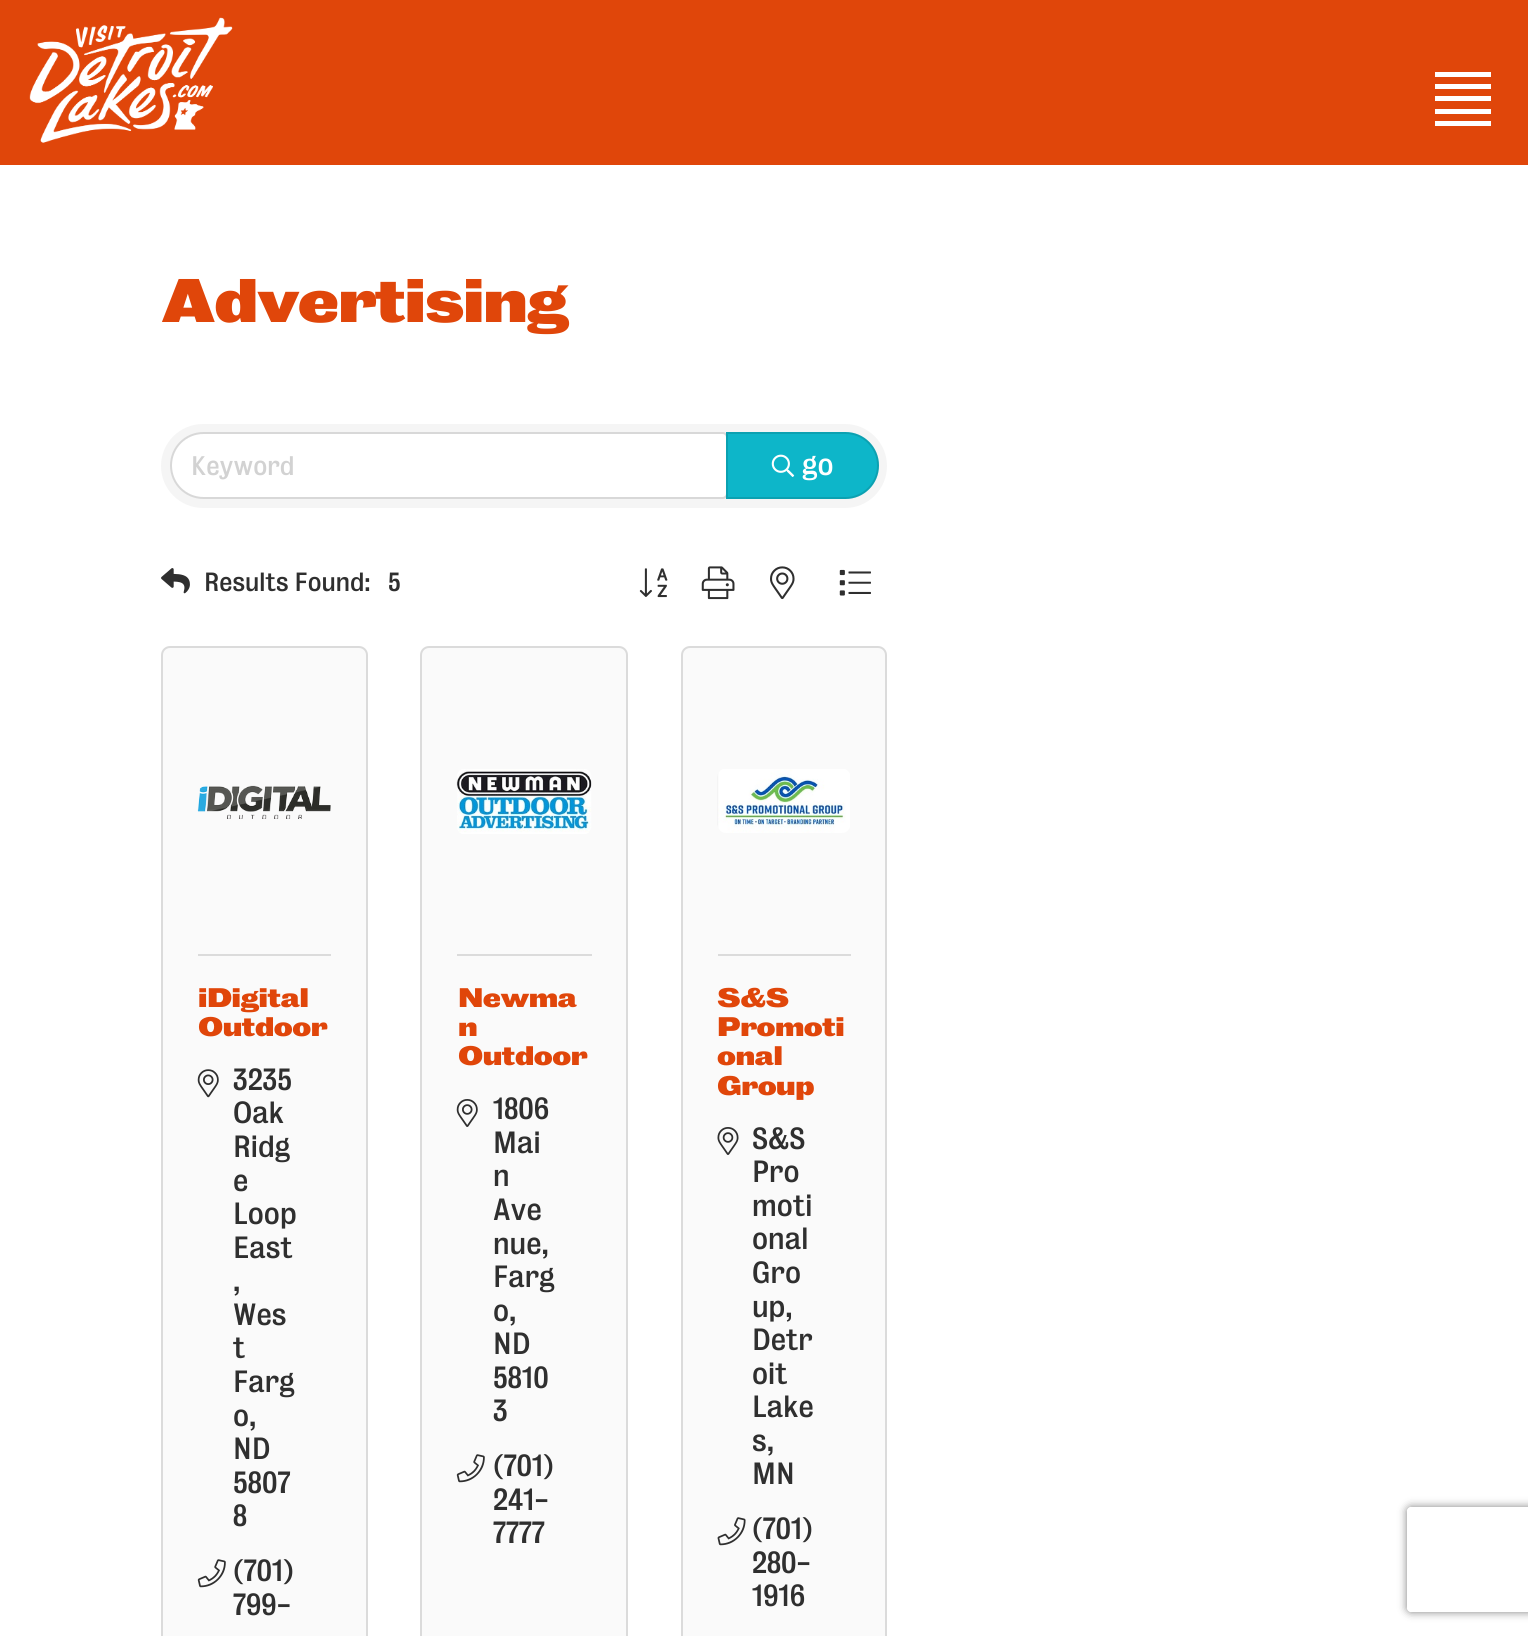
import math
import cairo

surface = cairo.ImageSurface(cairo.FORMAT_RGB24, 1528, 1636)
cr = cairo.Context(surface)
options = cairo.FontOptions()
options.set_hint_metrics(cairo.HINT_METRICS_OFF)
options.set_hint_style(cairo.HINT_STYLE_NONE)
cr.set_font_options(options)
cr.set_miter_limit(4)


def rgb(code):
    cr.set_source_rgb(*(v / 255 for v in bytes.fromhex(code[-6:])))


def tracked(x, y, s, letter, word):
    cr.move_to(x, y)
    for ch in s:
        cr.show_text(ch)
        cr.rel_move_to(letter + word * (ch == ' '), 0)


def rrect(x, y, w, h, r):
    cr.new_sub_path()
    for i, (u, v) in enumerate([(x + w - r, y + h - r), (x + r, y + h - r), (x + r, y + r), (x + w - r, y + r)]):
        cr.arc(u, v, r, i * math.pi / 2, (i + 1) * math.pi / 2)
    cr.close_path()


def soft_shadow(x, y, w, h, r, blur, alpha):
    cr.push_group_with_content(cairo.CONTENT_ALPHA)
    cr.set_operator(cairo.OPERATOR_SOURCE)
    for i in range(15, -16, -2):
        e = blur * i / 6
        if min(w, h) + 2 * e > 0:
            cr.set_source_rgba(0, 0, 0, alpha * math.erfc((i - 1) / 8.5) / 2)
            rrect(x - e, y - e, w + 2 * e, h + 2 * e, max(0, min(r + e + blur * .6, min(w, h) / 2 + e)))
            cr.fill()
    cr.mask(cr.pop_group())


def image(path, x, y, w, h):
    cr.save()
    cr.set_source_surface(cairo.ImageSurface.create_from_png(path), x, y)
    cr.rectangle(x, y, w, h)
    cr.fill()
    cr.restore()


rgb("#ffffff")
cr.paint()
rgb("#e0460a")
cr.rectangle(0, 0, 1528, 165)
cr.fill()
image("img/1.png", 29, 17, 204, 126)
for x, y, w, h, color in [
    (1435, 72, 56, 5, "#ffffff"),
    (1435, 84, 56, 5, "#ffffff"),
    (1435, 121, 56, 5, "#fefefe"),
    (1435, 109, 56, 5, "#fefefe"),
    (1435, 96, 56, 5, "#ffffff"),
]:
    rgb(color)
    cr.rectangle(x, y, w, h)
    cr.fill()
rgb("#f5f5f5")
rrect(161, 424, 726, 84, 42)
cr.fill()
rgb("#ffffff")
cr.new_path()
cr.move_to(203.5, 434)
cr.line_to(722, 434)
cr.curve_to(724, 434, 726, 436, 726, 438)
cr.line_to(726, 493)
cr.curve_to(726, 495, 724, 497, 722, 497)
cr.line_to(203.5, 497)
cr.curve_to(186, 497, 172, 483, 172, 465.5)
cr.curve_to(172, 448, 186, 434, 203.5, 434)
cr.close_path()
cr.fill()
cr.new_path()
cr.move_to(203.5, 433)
cr.line_to(723, 433)
cr.curve_to(725, 433, 727, 435, 727, 437)
cr.line_to(727, 494)
cr.curve_to(727, 496, 725, 498, 723, 498)
cr.line_to(203.5, 498)
cr.curve_to(185.5, 498, 171, 483.5, 171, 465.5)
cr.curve_to(171, 447.5, 185.5, 433, 203.5, 433)
cr.close_path()
cr.set_source_rgba(0, 0, 0, 0.12)
cr.stroke()
rgb("#0db6c9")
cr.new_path()
cr.move_to(726, 432)
cr.line_to(845.5, 432)
cr.curve_to(864, 432, 879, 447, 879, 465.5)
cr.curve_to(879, 484, 864, 499, 845.5, 499)
cr.line_to(726, 499)
cr.close_path()
cr.fill()
cr.new_path()
cr.move_to(727, 433)
cr.line_to(845.5, 433)
cr.curve_to(863.5, 433, 878, 447.5, 878, 465.5)
cr.curve_to(878, 483.5, 863.5, 498, 845.5, 498)
cr.line_to(727, 498)
cr.close_path()
cr.set_source_rgba(0, 0, 0, 0.12)
cr.stroke()
image("img/2.png", 771, 454, 24, 23)
image("img/3.png", 161, 568, 29, 26)
image("img/4.png", 639, 568, 29, 30)
image("img/5.png", 701, 566, 34, 34)
image("img/6.png", 770, 566, 25, 34)
image("img/7.png", 839, 569, 32, 27)
rgb("#fafafa")
rrect(162, 647, 205, 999, 8)
cr.fill_preserve()
rgb("#dbdbdb")
cr.stroke()
image("img/8.png", 197, 785, 134, 34)
cr.rectangle(198, 954, 133, 2)
cr.fill()
image("img/9.png", 197, 1069, 22, 29)
image("img/10.png", 197, 1559, 29, 29)
rgb("#fafafa")
rrect(421, 647, 206, 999, 8)
cr.fill_preserve()
rgb("#dbdbdb")
cr.stroke()
image("img/11.png", 456, 769, 136, 65)
cr.rectangle(457, 954, 135, 2)
cr.fill()
image("img/12.png", 456, 1099, 22, 28)
image("img/10.png", 456, 1454, 29, 29)
rgb("#fafafa")
rrect(682, 647, 204, 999, 8)
cr.fill_preserve()
rgb("#dbdbdb")
cr.stroke()
image("img/13.png", 717, 769, 133, 64)
cr.rectangle(718, 954, 133, 2)
cr.fill()
image("img/14.png", 717, 1127, 22, 28)
image("img/15.png", 717, 1517, 29, 29)
cr.save()
cr.set_fill_rule(cairo.FILL_RULE_EVEN_ODD)
cr.new_path()
cr.move_to(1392, 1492)
cr.line_to(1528, 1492)
cr.line_to(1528, 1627)
cr.line_to(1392, 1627)
cr.close_path()
cr.move_to(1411, 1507)
cr.line_to(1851, 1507)
cr.curve_to(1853, 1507, 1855, 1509, 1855, 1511)
cr.line_to(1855, 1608)
cr.curve_to(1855, 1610, 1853, 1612, 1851, 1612)
cr.line_to(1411, 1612)
cr.curve_to(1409, 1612, 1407, 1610, 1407, 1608)
cr.line_to(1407, 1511)
cr.curve_to(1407, 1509, 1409, 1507, 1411, 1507)
cr.close_path()
cr.clip()
rgb("#808080")
soft_shadow(1407, 1507, 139, 105, 4, 4.5, 1)
cr.restore()
cr.select_font_face("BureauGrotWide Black")
cr.set_font_size(56)
rgb("#e0460a")
tracked(161, 322, "Advertising", -1.4, 0)
cr.select_font_face("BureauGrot")
cr.set_font_size(24.5)
rgb("#d2d2d2")
cr.move_to(191, 475)
cr.show_text("Keyword")
cr.set_font_size(28)
rgb("#ffffff")
cr.move_to(802, 475)
cr.show_text("go")
cr.set_font_size(24)
rgb("#2f2f2f")
cr.move_to(204, 591)
cr.show_text("Results Found:")
cr.move_to(388, 591)
cr.show_text("5")
cr.select_font_face("BureauGrotWide Black")
cr.set_font_size(24.5)
rgb("#e0460a")
tracked(198, 1007, "iDigital", -0.5, 0)
tracked(198, 1036, "Outdoor", -0.5, 0)
cr.select_font_face("BureauGrot")
cr.set_font_size(28)
rgb("#2f2f2f")
for x, y, s in [
    (233, 1090, "3235"),
    (233, 1123, "Oak"),
    (233, 1157, "Ridg"),
    (233, 1191, "e"),
    (233, 1224, "Loop"),
    (233, 1258, "East"),
    (233, 1291, ","),
    (233, 1325, "Wes"),
    (233, 1358, "t"),
    (233, 1392, "Farg"),
    (233, 1426, "o,"),
    (233, 1459, "ND"),
    (233, 1493, "5807"),
    (233, 1526, "8"),
    (233, 1581, "(701)"),
    (233, 1615, "799-"),
]:
    cr.move_to(x, y)
    cr.show_text(s)
cr.select_font_face("BureauGrotWide Black")
cr.set_font_size(24.5)
rgb("#e0460a")
for x, y, s in [
    (458, 1007, "Newma"),
    (458, 1036, "n"),
    (458, 1065, "Outdoor"),
]:
    tracked(x, y, s, -0.5, 0)
cr.select_font_face("BureauGrot")
cr.set_font_size(28)
rgb("#2f2f2f")
for x, y, s in [
    (493, 1119, "1806"),
    (493, 1153, "Mai"),
    (493, 1186, "n"),
    (493, 1220, "Ave"),
    (493, 1254, "nue,"),
    (493, 1287, "Farg"),
    (493, 1321, "o,"),
    (493, 1354, "ND"),
    (493, 1388, "5810"),
    (493, 1421, "3"),
    (493, 1476, "(701)"),
    (493, 1510, "241-"),
    (493, 1543, "7777"),
]:
    cr.move_to(x, y)
    cr.show_text(s)
cr.select_font_face("BureauGrotWide Black")
cr.set_font_size(24.5)
rgb("#e0460a")
for x, y, s in [
    (717, 1007, "S&S"),
    (717, 1036, "Promoti"),
    (717, 1065, "onal"),
    (717, 1095, "Group"),
]:
    tracked(x, y, s, -0.5, 0)
cr.select_font_face("BureauGrot")
cr.set_font_size(28)
rgb("#2f2f2f")
for x, y, s in [
    (752, 1149, "S&S"),
    (752, 1182, "Pro"),
    (752, 1216, "moti"),
    (752, 1249, "onal"),
    (752, 1283, "Gro"),
    (752, 1317, "up,"),
    (752, 1350, "Detr"),
    (752, 1384, "oit"),
    (752, 1417, "Lake"),
    (752, 1451, "s,"),
    (752, 1484, "MN"),
    (752, 1539, "(701)"),
    (752, 1573, "280-"),
    (752, 1606, "1916"),
]:
    cr.move_to(x, y)
    cr.show_text(s)
surface.write_to_png("page.png")
